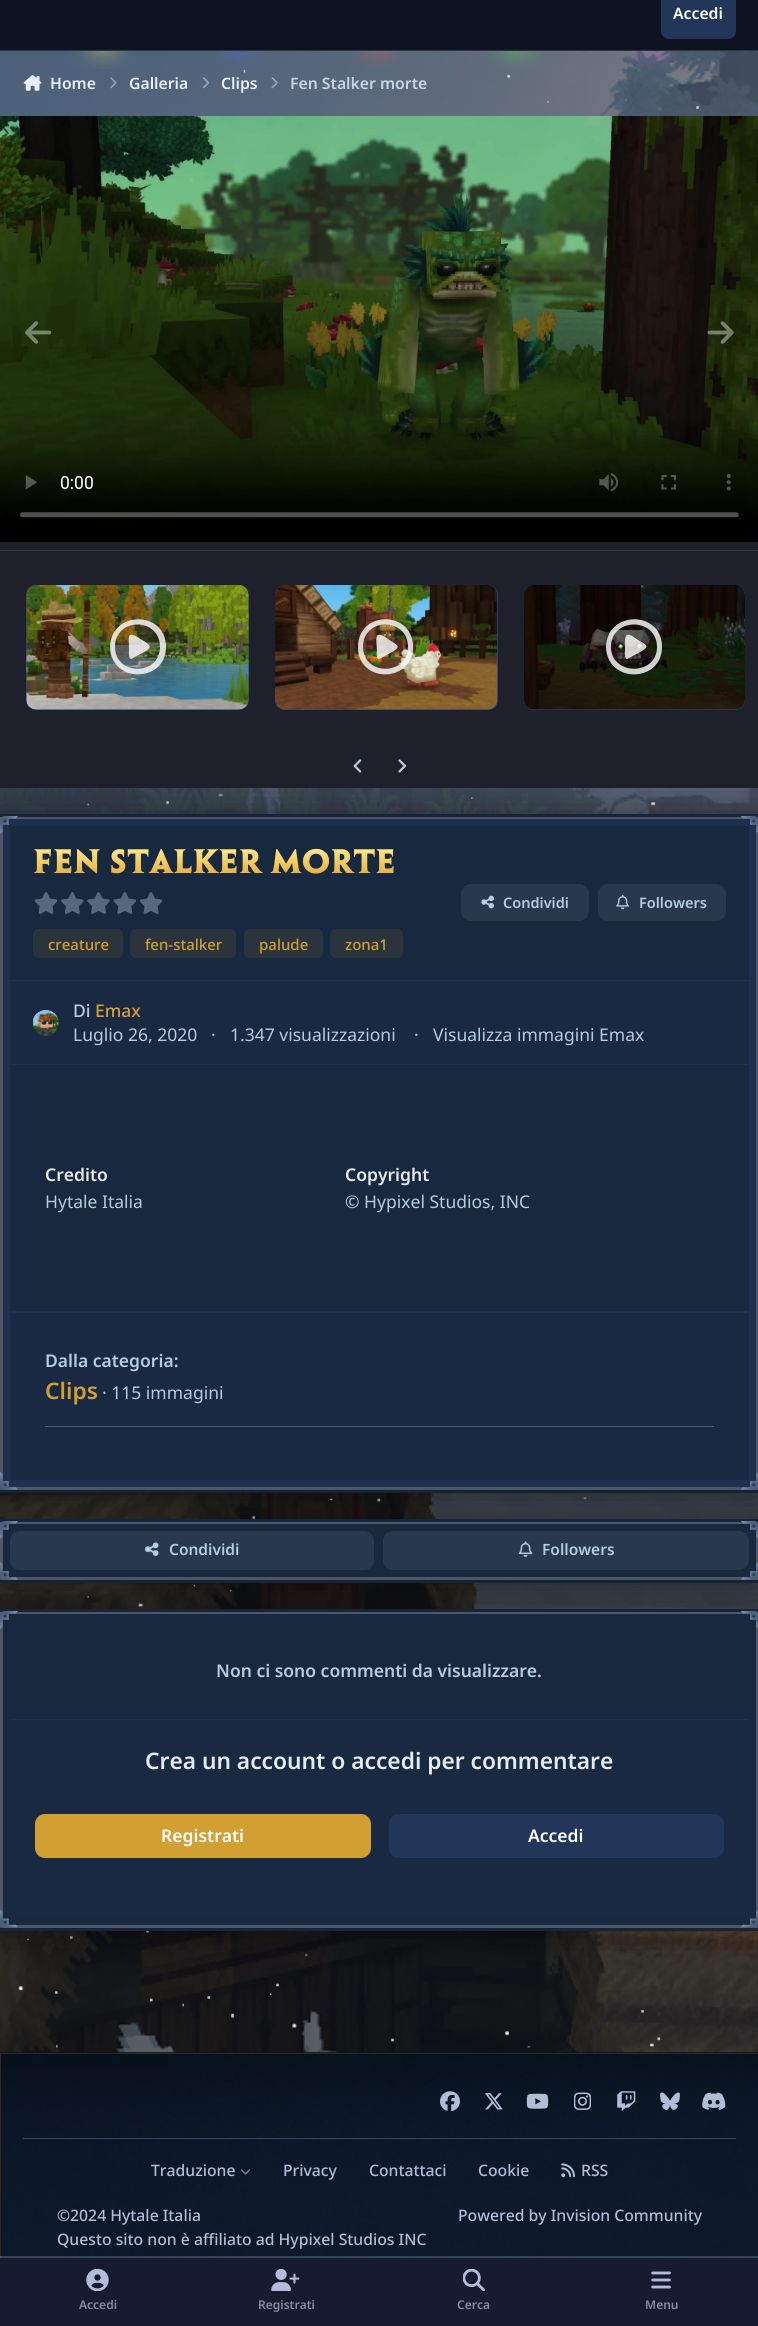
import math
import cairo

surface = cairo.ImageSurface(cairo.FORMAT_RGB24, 758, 2326)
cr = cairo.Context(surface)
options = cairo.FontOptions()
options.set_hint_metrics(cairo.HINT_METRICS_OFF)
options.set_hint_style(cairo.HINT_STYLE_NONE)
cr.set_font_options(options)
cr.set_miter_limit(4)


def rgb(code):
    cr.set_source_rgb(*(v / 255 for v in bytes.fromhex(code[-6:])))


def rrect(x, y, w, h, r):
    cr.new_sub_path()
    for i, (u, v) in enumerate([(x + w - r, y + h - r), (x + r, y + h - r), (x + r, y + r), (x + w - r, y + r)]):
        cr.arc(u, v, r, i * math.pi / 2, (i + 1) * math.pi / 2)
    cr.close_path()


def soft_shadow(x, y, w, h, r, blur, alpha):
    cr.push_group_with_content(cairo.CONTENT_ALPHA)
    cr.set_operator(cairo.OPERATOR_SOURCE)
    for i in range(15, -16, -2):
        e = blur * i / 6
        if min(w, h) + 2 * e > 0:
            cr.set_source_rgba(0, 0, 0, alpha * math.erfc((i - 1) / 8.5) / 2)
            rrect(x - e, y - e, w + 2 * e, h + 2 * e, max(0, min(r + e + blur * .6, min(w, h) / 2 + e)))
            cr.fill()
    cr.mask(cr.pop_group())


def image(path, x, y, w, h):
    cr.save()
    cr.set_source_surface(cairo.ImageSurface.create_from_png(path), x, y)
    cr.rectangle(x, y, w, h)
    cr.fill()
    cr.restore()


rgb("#ffffff")
cr.paint()
rgb("#0e1322")
cr.rectangle(0, 0, 758, 50)
cr.fill()
rgb("#2e3441")
cr.rectangle(0, 50, 758, 1)
cr.fill()
rgb("#223659")
rrect(661, -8, 75, 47, 8)
cr.fill()
image("img/35.png", 0, 51, 758, 2002)
image("img/37.png", 18, 69, 681, 1979)
image("img/1.png", 23, 75, 19, 16)
image("img/2.png", 110, 77, 7, 12)
image("img/3.png", 202, 77, 7, 12)
image("img/4.png", 271, 77, 7, 12)
rgb("#1e212b")
cr.rectangle(0, 542, 758, 8)
cr.fill()
image("img/5.png", 0, 116, 758, 426)
image("img/6.png", 25, 321, 27, 23)
image("img/7.png", 707, 321, 27, 23)
cr.rectangle(0, 551, 758, 237)
cr.fill()
rgb("#353740")
cr.rectangle(0, 550, 758, 1)
cr.fill()
rgb("#304282")
rrect(26, 585, 223, 125, 10)
cr.fill()
image("img/8.png", 26, 585, 223, 125)
cr.set_source_rgba(1, 1, 1, 0.8)
cr.new_path()
cr.move_to(160, 647)
cr.curve_to(160, 617, 115, 617, 115, 647)
cr.curve_to(115, 676, 160, 676, 160, 647)
cr.close_path()
cr.move_to(110, 647)
cr.curve_to(111, 610, 166, 610, 166, 647)
cr.curve_to(166, 683, 111, 684, 110, 647)
cr.close_path()
cr.move_to(130, 635)
cr.curve_to(133, 633, 141, 640, 144, 641)
cr.curve_to(149, 645, 153, 646, 146, 651)
cr.line_to(133, 658)
cr.curve_to(128, 662, 129, 651, 129, 650)
cr.curve_to(129, 647, 128, 636, 130, 635)
cr.close_path()
cr.fill()
rgb("#304282")
rrect(275, 585, 223, 125, 10)
cr.fill()
image("img/9.png", 275, 585, 223, 125)
cr.set_source_rgba(1, 1, 1, 0.8)
cr.new_path()
cr.move_to(408, 647)
cr.curve_to(408, 617, 363, 617, 363, 647)
cr.curve_to(363, 676, 408, 676, 408, 647)
cr.close_path()
cr.move_to(358, 647)
cr.curve_to(358, 610, 413, 610, 413, 647)
cr.curve_to(413, 683, 358, 684, 358, 647)
cr.close_path()
cr.move_to(378, 635)
cr.curve_to(381, 633, 389, 640, 391, 641)
cr.curve_to(397, 645, 401, 646, 394, 651)
cr.line_to(381, 658)
cr.curve_to(375, 662, 377, 651, 377, 650)
cr.curve_to(377, 647, 375, 636, 378, 635)
cr.close_path()
cr.fill()
rgb("#304282")
rrect(524, 585, 221, 125, 10)
cr.fill()
image("img/10.png", 524, 585, 221, 125)
cr.set_source_rgba(1, 1, 1, 0.8)
cr.new_path()
cr.move_to(657, 647)
cr.curve_to(657, 617, 611, 617, 611, 647)
cr.curve_to(611, 676, 657, 676, 657, 647)
cr.close_path()
cr.move_to(606, 647)
cr.curve_to(607, 610, 662, 610, 662, 647)
cr.curve_to(662, 683, 607, 684, 606, 647)
cr.close_path()
cr.move_to(627, 635)
cr.curve_to(630, 633, 637, 640, 640, 641)
cr.curve_to(646, 645, 650, 646, 642, 651)
cr.line_to(629, 658)
cr.curve_to(624, 662, 625, 651, 625, 650)
cr.curve_to(625, 647, 624, 636, 627, 635)
cr.close_path()
cr.fill()
image("img/11.png", 353, 759, 9, 14)
image("img/12.png", 398, 759, 9, 14)
rgb("#000000")
soft_shadow(0, 819, 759, 679, 0, 19, 0.5)
rgb("#1f2f4e")
cr.rectangle(1.5, 817.5, 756, 671)
cr.fill_preserve()
rgb("#4e5765")
cr.set_line_width(3)
cr.stroke()
for x, y, w, h, color in [
    (0, 814, 758, 3, "#15243a"),
    (0, 1490, 758, 3, "#15243a"),
    (10, 826, 739, 485, "#18283e"),
    (10, 1064, 739, 1, "#1f2f4e"),
]:
    rgb(color)
    cr.rectangle(x, y, w, h)
    cr.fill()
rgb("#2b343d")
rrect(33, 929, 90, 29, 6)
cr.fill()
rrect(130, 929, 106, 29, 6)
cr.fill()
rrect(244, 929, 79, 29, 6)
cr.fill()
rrect(330, 929, 73, 29, 6)
cr.fill()
rgb("#28394e")
rrect(461, 884, 128, 37, 10)
cr.fill()
image("img/18.png", 481, 895, 13, 14)
rrect(598, 884, 128, 37, 10)
cr.fill()
image("img/19.png", 616, 894, 13, 16)
for x, y, w, h, color in [
    (10, 981, 739, 83, "#1a2942"),
    (10, 980, 739, 1, "#1f2f4e"),
    (10, 1313, 739, 167, "#1a2942"),
]:
    rgb(color)
    cr.rectangle(x, y, w, h)
    cr.fill()
image("img/25.png", 0, 2052, 758, 206)
cr.rectangle(0.5, 2053.5, 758, 247)
rgb("#2c2b22")
cr.set_line_width(1)
cr.stroke()
image("img/26.png", 440, 2091, 20, 20)
image("img/27.png", 484, 2093, 19, 17)
image("img/28.png", 526, 2093, 23, 16)
image("img/29.png", 574, 2092, 17, 18)
image("img/30.png", 617, 2091, 19, 20)
image("img/31.png", 660, 2092, 20, 18)
image("img/32.png", 702, 2092, 24, 18)
cr.set_source_rgba(0.702, 0.741, 0.843, 0.3)
cr.rectangle(23, 2138, 713, 1)
cr.fill()
image("img/33.png", 240, 2169, 10, 6)
image("img/34.png", 561, 2163, 14, 15)
image("img/36.png", 31, 51, 694, 18)
cr.set_source_rgba(0.714, 0.804, 0.867, 0.25)
cr.new_path()
cr.move_to(0, 2256)
cr.line_to(0, 2258)
cr.line_to(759, 2258)
cr.line_to(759, 2325)
cr.line_to(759, 2256)
cr.close_path()
cr.fill()
rgb("#151c31")
cr.rectangle(0, 2258, 758, 68)
cr.fill()
image("img/38.png", 86, 2269, 23, 22)
image("img/39.png", 271, 2269, 29, 22)
image("img/40.png", 463, 2269, 22, 22)
image("img/41.png", 651, 2271, 20, 18)
cr.select_font_face("Noto Sans SemiBold")
cr.set_font_size(15.75)
rgb("#ffffff")
cr.move_to(673, 19)
cr.show_text("Accedi")
rgb("#e9eefc")
for x, y, s in [
    (50, 89, "Home"),
    (129, 89, "Galleria"),
    (221, 89, "Clips"),
]:
    cr.move_to(x, y)
    cr.show_text(s)
rgb("#ccd3e2")
cr.move_to(290, 89)
cr.show_text("Fen Stalker morte")
cr.select_font_face("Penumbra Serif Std", cairo.FONT_SLANT_NORMAL, cairo.FONT_WEIGHT_BOLD)
cr.set_font_size(30.4)
gradient = cairo.LinearGradient(238, 848, 238, 882)
gradient.add_color_stop_rgba(0, 1, 0.914, 0.553, 1)
gradient.add_color_stop_rgba(1, 0.882, 0.624, 0.153, 1)
cr.set_source(gradient)
cr.move_to(33, 873)
cr.show_text("FEN STALKER MORTE")
cr.select_font_face("Noto Sans Medium")
cr.set_font_size(15)
rgb("#d29f32")
for x, y, s in [
    (48, 950, "creature"),
    (145, 950, "fen-stalker"),
    (259, 950, "palude"),
    (345, 950, "zona1"),
]:
    cr.move_to(x, y)
    cr.show_text(s)
cr.select_font_face("Noto Sans SemiBold")
cr.set_font_size(14.5)
rgb("#b6cddd")
cr.move_to(503, 908)
cr.show_text("Condividi")
cr.move_to(639, 908)
cr.show_text("Followers")
cr.select_font_face("Noto Sans Medium")
cr.set_font_size(17.5)
cr.move_to(73, 1017)
cr.show_text("Di")
rgb("#d29f32")
cr.move_to(95, 1017)
cr.show_text("Emax")
cr.select_font_face("Noto Sans")
rgb("#b6cddd")
for x, y, s in [
    (73, 1041, "Luglio 26, 2020"),
    (211, 1041, "·"),
    (230, 1041, "1.347 visualizzazioni"),
    (414, 1041, "·"),
    (433, 1041, "Visualizza immagini Emax"),
]:
    cr.move_to(x, y)
    cr.show_text(s)
cr.select_font_face("Noto Sans SemiBold")
rgb("#e5ecf0")
cr.move_to(45, 1181)
cr.show_text("Credito")
cr.select_font_face("Noto Sans")
rgb("#b6cddd")
cr.move_to(45, 1208)
cr.show_text("Hytale Italia")
cr.select_font_face("Noto Sans SemiBold")
rgb("#e5ecf0")
cr.move_to(345, 1181)
cr.show_text("Copyright")
cr.select_font_face("Noto Sans")
rgb("#b6cddd")
cr.move_to(345, 1208)
cr.show_text("© Hypixel Studios, INC")
cr.select_font_face("Noto Sans SemiBold")
cr.move_to(45, 1367)
cr.show_text("Dalla categoria:")
cr.set_font_size(22.75)
rgb("#d29f32")
cr.move_to(45, 1399)
cr.show_text("Clips")
cr.select_font_face("Noto Sans")
cr.set_font_size(17.5)
rgb("#b6cddd")
cr.move_to(102, 1399)
cr.show_text("· 115 immagini")
image("img/13.png", 0, 816, 758, 674)
rgb("#1d2c48")
cr.arc(46, 1023, 13, 0, 2 * math.pi)
cr.fill()
image("img/20.png", 32, 1010, 27, 26)
image("img/14.png", 139, 892, 24, 22)
image("img/17.png", 113, 892, 23, 22)
image("img/16.png", 87, 892, 23, 22)
image("img/15.png", 61, 892, 23, 22)
image("img/14.png", 34, 892, 24, 22)
rgb("#495a71")
cr.rectangle(45, 1426, 669, 1)
cr.fill()
rgb("#000000")
soft_shadow(0, 1524, 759, 64, 0, 19, 0.5)
rgb("#18283e")
cr.rectangle(1.5, 1522.5, 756, 56)
cr.fill_preserve()
rgb("#4e5765")
cr.set_line_width(3)
cr.stroke()
rgb("#15243a")
cr.rectangle(0, 1519, 758, 3)
cr.fill()
cr.rectangle(0, 1580, 758, 3)
cr.fill()
rgb("#28394e")
rrect(10, 1531, 364, 39, 10)
cr.fill()
image("img/22.png", 145, 1542, 14, 14)
cr.select_font_face("Noto Sans SemiBold")
cr.set_font_size(15.5)
rgb("#b6cddd")
cr.move_to(169, 1555)
cr.show_text("Condividi")
rgb("#28394e")
rrect(383, 1531, 366, 39, 10)
cr.fill()
image("img/23.png", 518, 1541, 15, 16)
rgb("#b6cddd")
cr.move_to(542, 1555)
cr.show_text("Followers")
image("img/21.png", 0, 1521, 758, 59)
rgb("#000000")
soft_shadow(0, 1614, 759, 321, 0, 19, 0.5)
rgb("#18283e")
cr.rectangle(1.5, 1612.5, 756, 314)
cr.fill_preserve()
rgb("#4e5765")
cr.stroke()
rgb("#15243a")
cr.rectangle(0, 1609, 758, 3)
cr.fill()
cr.rectangle(0, 1928, 758, 3)
cr.fill()
cr.set_font_size(17.5)
rgb("#b6cddd")
cr.move_to(216, 1677)
cr.show_text("Non ci sono commenti da visualizzare.")
rgb("#1a2942")
cr.new_path()
cr.move_to(10, 1719)
cr.line_to(749, 1719)
cr.line_to(749, 1908)
cr.curve_to(749, 1913.5, 744.5, 1918, 739, 1918)
cr.line_to(20, 1918)
cr.curve_to(14.5, 1918, 10, 1913.5, 10, 1908)
cr.close_path()
cr.fill()
rgb("#1f2f4e")
cr.rectangle(10, 1719, 739, 1)
cr.fill()
cr.set_font_size(22.75)
rgb("#e5ecf0")
cr.move_to(145, 1769)
cr.show_text("Crea un account o accedi per commentare")
rgb("#d29f32")
rrect(35, 1814, 336, 44, 10)
cr.fill()
cr.set_font_size(17.5)
rgb("#ffffff")
cr.move_to(161, 1842)
cr.show_text("Registrati")
rgb("#223659")
rrect(389, 1814, 335, 44, 10)
cr.fill()
rgb("#ffffff")
cr.move_to(528, 1842)
cr.show_text("Accedi")
image("img/24.png", 0, 1611, 758, 317)
cr.select_font_face("Noto Sans Medium")
cr.set_font_size(15.75)
rgb("#b3bdd7")
for x, y, s in [
    (151, 2176, "Traduzione"),
    (283, 2176, "Privacy"),
    (369, 2176, "Contattaci"),
    (478, 2176, "Cookie"),
    (581, 2176, "RSS"),
    (57, 2221, "©2024 Hytale Italia"),
    (57, 2245, "Questo sito non è affiliato ad Hypixel Studios INC"),
    (458, 2221, "Powered by Invision Community"),
]:
    cr.move_to(x, y)
    cr.show_text(s)
cr.select_font_face("Noto Sans SemiBold")
cr.set_font_size(12)
rgb("#848da5")
for x, y, s in [
    (79, 2309, "Accedi"),
    (258, 2309, "Registrati"),
    (457, 2309, "Cerca"),
    (645, 2309, "Menu"),
]:
    cr.move_to(x, y)
    cr.show_text(s)
surface.write_to_png("page.png")
